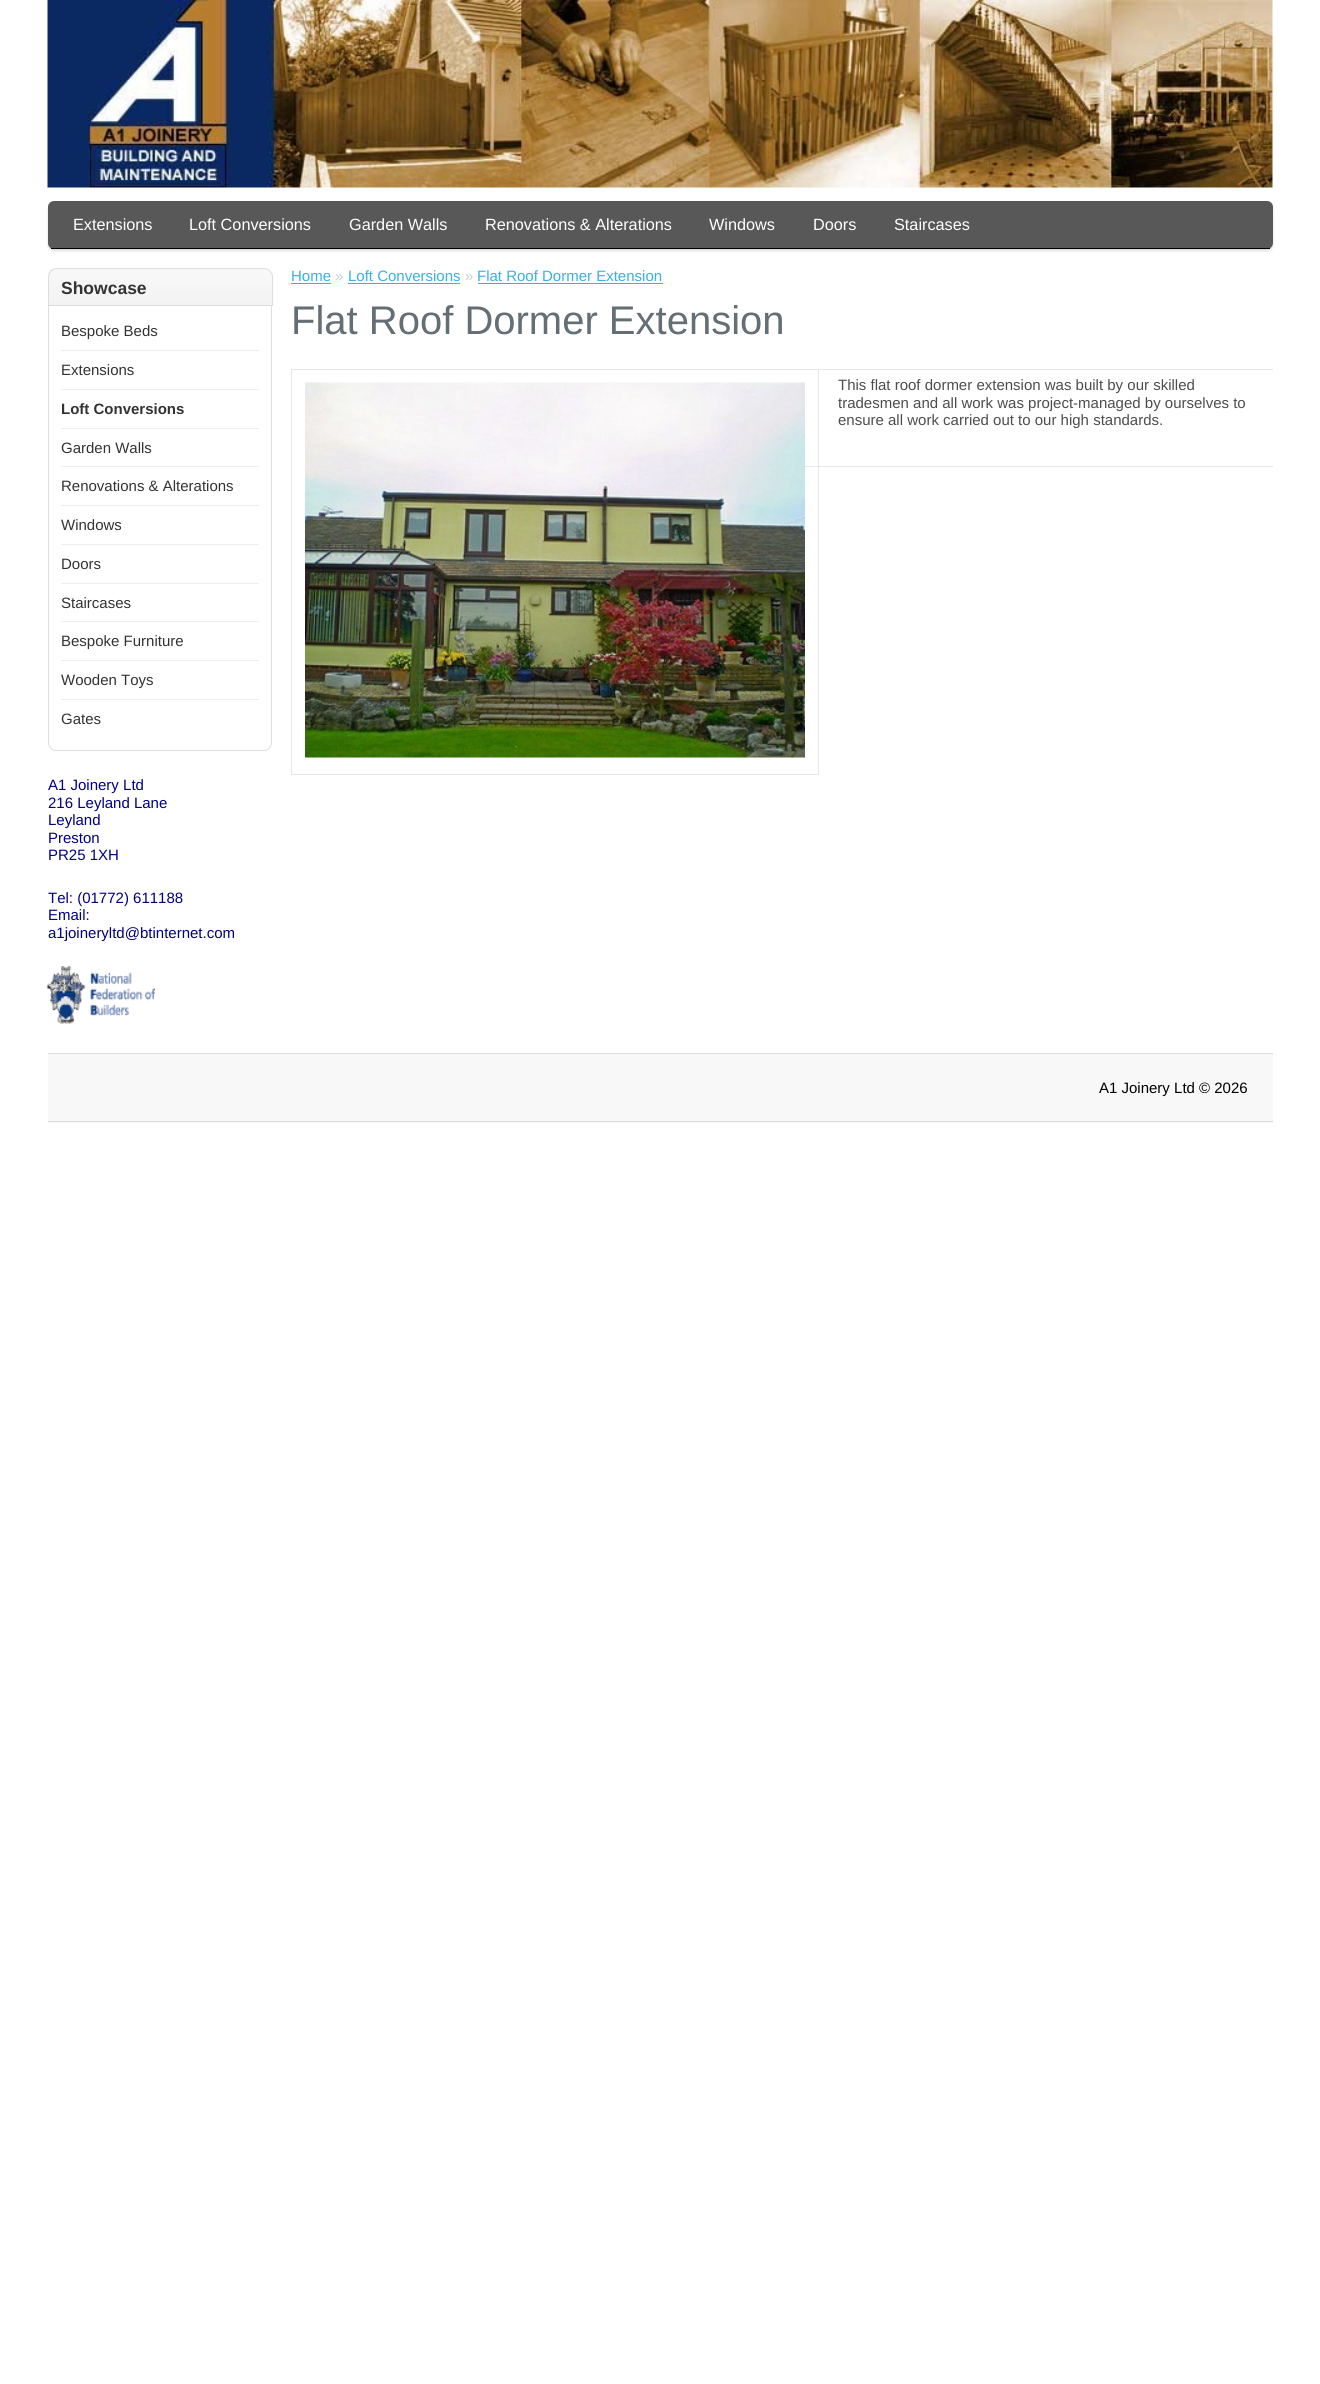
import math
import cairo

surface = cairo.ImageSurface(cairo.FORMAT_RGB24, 1320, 2384)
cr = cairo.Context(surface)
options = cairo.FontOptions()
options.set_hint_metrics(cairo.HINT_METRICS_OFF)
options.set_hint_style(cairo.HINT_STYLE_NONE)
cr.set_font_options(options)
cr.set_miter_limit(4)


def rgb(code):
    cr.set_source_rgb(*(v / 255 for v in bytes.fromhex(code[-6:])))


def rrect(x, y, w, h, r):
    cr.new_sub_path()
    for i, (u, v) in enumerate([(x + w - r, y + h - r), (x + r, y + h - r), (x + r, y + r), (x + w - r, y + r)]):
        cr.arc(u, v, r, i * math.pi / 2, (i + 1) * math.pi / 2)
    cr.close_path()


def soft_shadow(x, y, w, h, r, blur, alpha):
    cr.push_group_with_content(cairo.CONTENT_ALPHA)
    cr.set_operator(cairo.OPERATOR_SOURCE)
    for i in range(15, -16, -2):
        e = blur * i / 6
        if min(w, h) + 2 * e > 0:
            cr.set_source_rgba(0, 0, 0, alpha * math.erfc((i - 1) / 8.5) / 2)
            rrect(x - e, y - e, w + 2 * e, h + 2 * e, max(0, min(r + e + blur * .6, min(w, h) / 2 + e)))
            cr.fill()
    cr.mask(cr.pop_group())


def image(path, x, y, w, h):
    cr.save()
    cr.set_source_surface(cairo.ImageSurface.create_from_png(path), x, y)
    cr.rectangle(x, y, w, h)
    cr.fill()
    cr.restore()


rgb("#ffffff")
cr.paint()
image("img/1.png", 47, 0, 1226, 188)
rgb("#dddddd")
soft_shadow(48, 204, 1225, 47, 6, 1, 1)
rgb("#585858")
rrect(48, 201, 1225, 48, 6)
cr.fill()
rgb("#000000")
cr.rectangle(51, 248, 1219, 1)
cr.fill()
image("img/2.png", 48, 269, 224, 36)
cr.new_path()
cr.move_to(57, 268.5)
cr.line_to(264, 268.5)
cr.curve_to(268.5, 268.5, 272.5, 272.5, 272.5, 277)
cr.line_to(272.5, 305.5)
cr.line_to(48.5, 305.5)
cr.line_to(48.5, 277)
cr.curve_to(48.5, 272.5, 52.5, 268.5, 57, 268.5)
cr.close_path()
rgb("#dbdee1")
cr.set_line_width(1)
cr.stroke()
cr.set_fill_rule(cairo.FILL_RULE_EVEN_ODD)
cr.new_path()
cr.move_to(48, 306)
cr.line_to(272, 306)
cr.line_to(272, 742)
cr.curve_to(272, 747, 269, 751, 264, 751)
cr.line_to(56, 751)
cr.curve_to(51, 751, 48, 747, 48, 742)
cr.close_path()
cr.move_to(49, 306)
cr.line_to(271, 306)
cr.line_to(271, 742)
cr.curve_to(271, 747, 268, 750, 264, 750)
cr.line_to(56, 750)
cr.curve_to(52, 750, 49, 747, 49, 742)
cr.close_path()
cr.fill()
for x, y, w, h, color in [
    (61, 350, 198, 1, "#eeeeee"),
    (61, 389, 198, 1, "#eeeeee"),
    (61, 428, 198, 1, "#eeeeee"),
    (61, 466, 198, 1, "#eeeeee"),
    (61, 505, 198, 1, "#eeeeee"),
    (61, 544, 198, 1, "#eeeeee"),
    (61, 583, 198, 1, "#eeeeee"),
    (61, 621, 198, 1, "#eeeeee"),
    (61, 660, 198, 1, "#eeeeee"),
    (61, 699, 198, 1, "#eeeeee"),
]:
    rgb(color)
    cr.rectangle(x, y, w, h)
    cr.fill()
image("img/3.png", 47, 966, 108, 58)
for x, y, w, h, color in [
    (291, 283, 40, 1, "#38b0e3"),
    (348, 283, 112, 1, "#38b0e3"),
    (478, 283, 185, 1, "#38b0e3"),
    (805, 466, 468, 1, "#e7e7e7"),
]:
    rgb(color)
    cr.rectangle(x, y, w, h)
    cr.fill()
cr.rectangle(291.5, 369.5, 527, 405)
cr.stroke()
image("img/4.png", 305, 382, 500, 376)
for x, y, w, h, color in [
    (819, 369, 454, 1, "#e7e7e7"),
    (48, 1054, 1225, 69, "#f8f8f8"),
    (48, 1053, 1225, 1, "#dbdee1"),
    (48, 1121, 1225, 1, "#dbdee1"),
]:
    rgb(color)
    cr.rectangle(x, y, w, h)
    cr.fill()
cr.select_font_face("Liberation Sans")
cr.set_font_size(16.25)
rgb("#ffffff")
for x, y, s in [
    (73, 230, "Extensions"),
    (189, 230, "Loft Conversions"),
    (349, 230, "Garden Walls"),
    (485, 230, "Renovations & Alterations"),
    (709, 230, "Windows"),
    (813, 230, "Doors"),
    (894, 230, "Staircases"),
]:
    cr.move_to(x, y)
    cr.show_text(s)
cr.select_font_face("Liberation Sans", cairo.FONT_SLANT_NORMAL, cairo.FONT_WEIGHT_BOLD)
cr.set_font_size(17.5)
rgb("#333333")
cr.move_to(61, 294)
cr.show_text("Showcase")
cr.select_font_face("Liberation Sans")
cr.set_font_size(15)
cr.move_to(61, 336)
cr.show_text("Bespoke Beds")
cr.move_to(61, 375)
cr.show_text("Extensions")
cr.select_font_face("Liberation Sans", cairo.FONT_SLANT_NORMAL, cairo.FONT_WEIGHT_BOLD)
cr.move_to(61, 414)
cr.show_text("Loft Conversions")
cr.select_font_face("Liberation Sans")
for x, y, s in [
    (61, 453, "Garden Walls"),
    (61, 491, "Renovations & Alterations"),
    (61, 530, "Windows"),
    (61, 569, "Doors"),
    (61, 608, "Staircases"),
    (61, 646, "Bespoke Furniture"),
    (61, 685, "Wooden Toys"),
    (61, 724, "Gates"),
]:
    cr.move_to(x, y)
    cr.show_text(s)
rgb("#000080")
for x, y, s in [
    (48, 790, "A1 Joinery Ltd"),
    (48, 808, "216 Leyland Lane"),
    (48, 825, "Leyland"),
    (48, 843, "Preston"),
    (48, 860, "PR25 1XH"),
    (48, 903, "Tel: (01772) 611188"),
    (48, 920, "Email:"),
    (48, 938, "a1joineryltd@btinternet.com"),
]:
    cr.move_to(x, y)
    cr.show_text(s)
rgb("#38b0e3")
cr.move_to(291, 281)
cr.show_text("Home")
rgb("#cccccc")
cr.move_to(335, 281)
cr.show_text("»")
rgb("#38b0e3")
cr.move_to(348, 281)
cr.show_text("Loft Conversions")
rgb("#cccccc")
cr.move_to(465, 281)
cr.show_text("»")
rgb("#38b0e3")
cr.move_to(477, 281)
cr.show_text("Flat Roof Dormer Extension")
cr.set_font_size(40)
rgb("#636e75")
cr.move_to(291, 334)
cr.show_text("Flat Roof Dormer Extension")
cr.set_font_size(15)
rgb("#4d4d4d")
for x, y, s in [
    (838, 390, "This flat roof dormer extension was built by our skilled"),
    (838, 408, "tradesmen and all work was project-managed by ourselves to"),
    (838, 425, "ensure all work carried out to our high standards."),
]:
    cr.move_to(x, y)
    cr.show_text(s)
rgb("#000000")
cr.move_to(1099, 1093)
cr.show_text("A1 Joinery Ltd © 2026")
surface.write_to_png("page.png")
